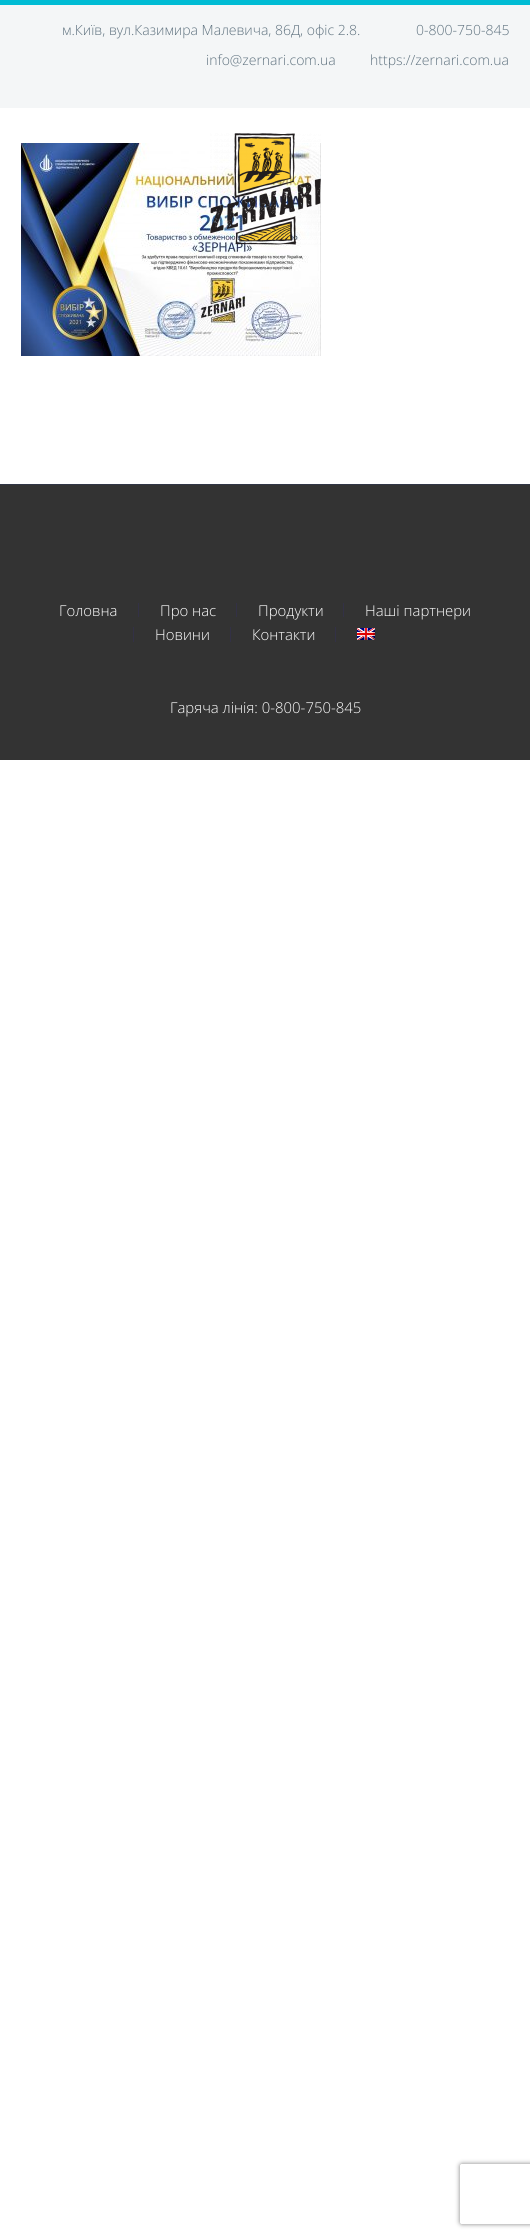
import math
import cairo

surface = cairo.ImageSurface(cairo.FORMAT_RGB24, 530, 2238)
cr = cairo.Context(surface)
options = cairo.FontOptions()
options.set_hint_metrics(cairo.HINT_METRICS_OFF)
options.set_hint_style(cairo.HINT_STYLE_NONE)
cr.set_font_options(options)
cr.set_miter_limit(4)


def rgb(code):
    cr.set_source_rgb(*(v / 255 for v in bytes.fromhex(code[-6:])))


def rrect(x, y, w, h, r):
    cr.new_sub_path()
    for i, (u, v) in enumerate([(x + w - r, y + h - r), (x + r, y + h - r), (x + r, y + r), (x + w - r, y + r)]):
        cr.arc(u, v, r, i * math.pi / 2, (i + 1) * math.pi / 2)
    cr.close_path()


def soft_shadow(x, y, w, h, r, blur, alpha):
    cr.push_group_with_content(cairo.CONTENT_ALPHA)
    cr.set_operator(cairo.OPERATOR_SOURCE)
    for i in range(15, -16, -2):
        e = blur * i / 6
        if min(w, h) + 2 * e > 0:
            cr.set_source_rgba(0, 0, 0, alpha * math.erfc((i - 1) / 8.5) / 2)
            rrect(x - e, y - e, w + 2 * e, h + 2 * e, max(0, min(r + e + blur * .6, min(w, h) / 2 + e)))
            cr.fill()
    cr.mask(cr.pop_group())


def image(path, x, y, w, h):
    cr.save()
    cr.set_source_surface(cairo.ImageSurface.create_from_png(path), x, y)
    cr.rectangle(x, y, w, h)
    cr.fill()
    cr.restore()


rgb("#ffffff")
cr.paint()
rgb("#f4f6f7")
cr.rectangle(0, 5, 530, 103)
cr.fill()
rgb("#00bcd4")
cr.rectangle(0, 0, 530, 5)
cr.fill()
image("img/2.png", 21, 143, 300, 213)
image("img/1.png", 210, 133, 111, 112)
for x, y, w, h, color in [
    (0, 485, 530, 275, "#333333"),
    (0, 484, 530, 1, "#313646"),
    (138, 603, 1, 14, "#333146"),
    (236, 603, 1, 14, "#333146"),
    (343, 603, 1, 14, "#333146"),
    (133, 627, 1, 15, "#333146"),
    (230, 627, 1, 15, "#333146"),
    (335, 627, 1, 15, "#333146"),
]:
    rgb(color)
    cr.rectangle(x, y, w, h)
    cr.fill()
image("img/3.png", 357, 628, 18, 12)
cr.save()
cr.set_fill_rule(cairo.FILL_RULE_EVEN_ODD)
cr.new_path()
cr.move_to(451, 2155)
cr.line_to(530, 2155)
cr.line_to(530, 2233)
cr.line_to(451, 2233)
cr.close_path()
cr.move_to(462, 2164)
cr.line_to(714, 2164)
cr.curve_to(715, 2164, 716, 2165, 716, 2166)
cr.line_to(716, 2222)
cr.curve_to(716, 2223, 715, 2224, 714, 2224)
cr.line_to(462, 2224)
cr.curve_to(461, 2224, 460, 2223, 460, 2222)
cr.line_to(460, 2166)
cr.curve_to(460, 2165, 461, 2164, 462, 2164)
cr.close_path()
cr.clip()
rgb("#808080")
soft_shadow(460, 2164, 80, 60, 2, 2.5, 1)
cr.restore()
cr.select_font_face("Open Sans Light")
cr.set_font_size(14)
rgb("#5f727f")
for x, y, s in [
    (62, 35, "м.Київ, вул.Казимира Малевича, 86Д, офіс 2.8."),
    (416, 35, "0-800-750-845"),
    (206, 65, "info@zernari.com.ua"),
    (370, 65, "https://zernari.com.ua"),
]:
    cr.move_to(x, y)
    cr.show_text(s)
cr.set_font_size(14.9)
rgb("#ffffff")
for x, y, s in [
    (59, 616, "Головна"),
    (160, 616, "Про нас"),
    (258, 616, "Продукти"),
    (365, 616, "Наші партнери"),
    (155, 640, "Новини"),
    (252, 640, "Контакти"),
    (170, 713, "Гаряча лінія: 0-800-750-845"),
]:
    cr.move_to(x, y)
    cr.show_text(s)
surface.write_to_png("page.png")
